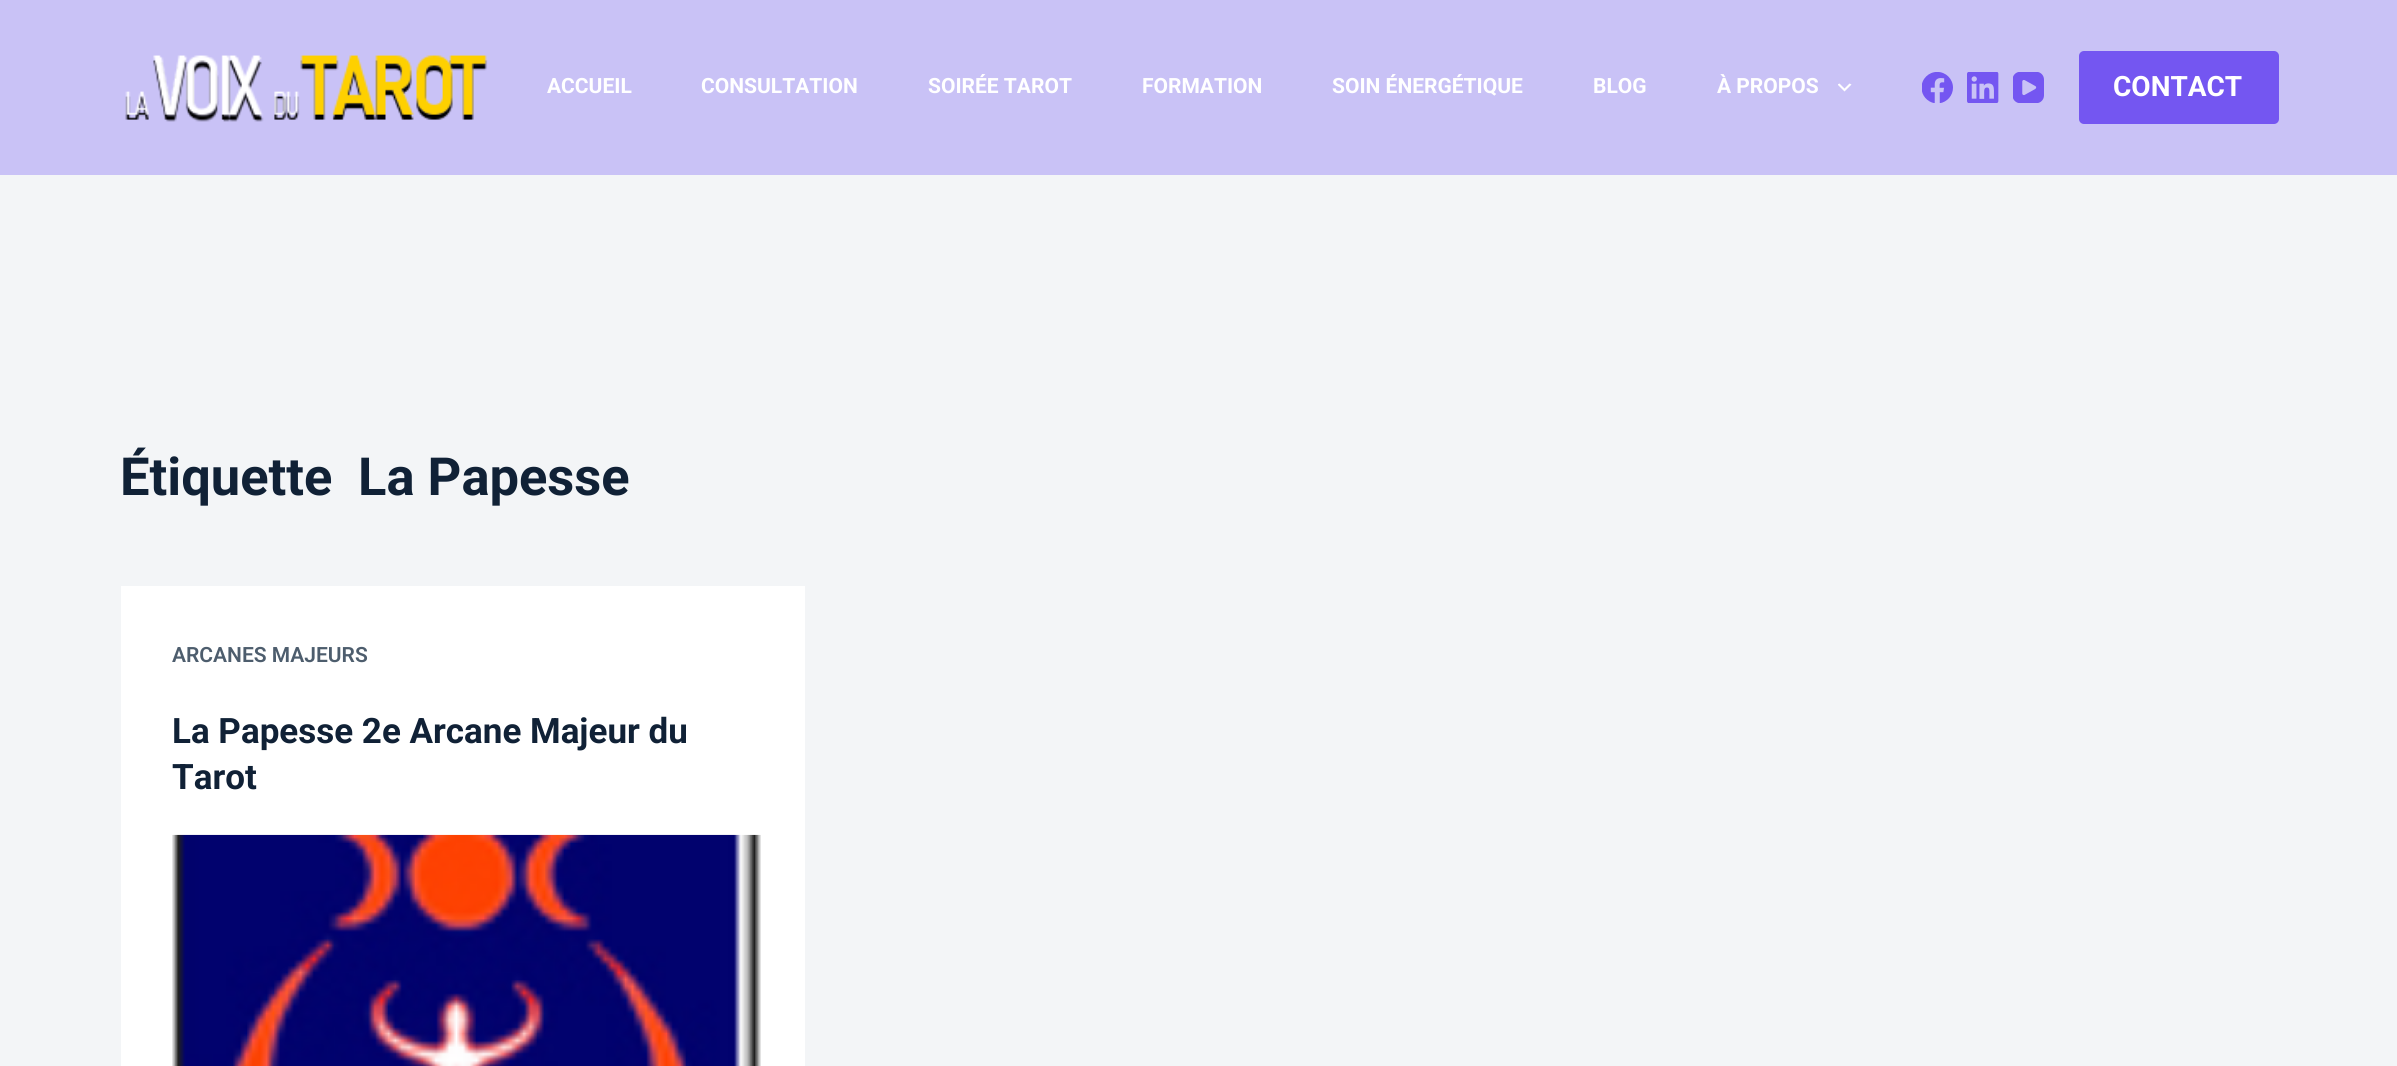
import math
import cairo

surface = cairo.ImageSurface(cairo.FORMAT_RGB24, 2397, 1066)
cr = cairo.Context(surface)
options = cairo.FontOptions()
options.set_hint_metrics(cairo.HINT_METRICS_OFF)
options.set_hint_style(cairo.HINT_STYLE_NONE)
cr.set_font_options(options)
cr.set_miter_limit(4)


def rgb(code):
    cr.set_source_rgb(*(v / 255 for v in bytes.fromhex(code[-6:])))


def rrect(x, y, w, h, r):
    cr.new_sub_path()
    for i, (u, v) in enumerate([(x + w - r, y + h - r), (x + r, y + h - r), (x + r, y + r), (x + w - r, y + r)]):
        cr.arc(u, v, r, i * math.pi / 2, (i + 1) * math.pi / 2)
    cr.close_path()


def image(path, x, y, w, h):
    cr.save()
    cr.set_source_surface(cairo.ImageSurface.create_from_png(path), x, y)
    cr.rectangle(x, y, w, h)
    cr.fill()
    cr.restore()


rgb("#f3f5f7")
cr.paint()
rgb("#c9c2f6")
cr.rectangle(0, 0, 2397, 175)
cr.fill()
image("img/1.png", 125, 55, 363, 67)
image("img/2.png", 1838, 83, 14, 9)
image("img/3.png", 1922, 72, 31, 31)
image("img/4.png", 1967, 72, 32, 31)
image("img/5.png", 2013, 72, 31, 31)
rgb("#7456f1")
rrect(2079, 51, 200, 73, 5)
cr.fill()
rgb("#ffffff")
cr.rectangle(121, 586, 684, 480)
cr.fill()
image("img/6.png", 172, 834, 589, 232)
cr.select_font_face("Roboto", cairo.FONT_SLANT_NORMAL, cairo.FONT_WEIGHT_BOLD)
cr.set_font_size(21)
for x, y, s in [
    (547, 93, "ACCUEIL"),
    (701, 93, "CONSULTATION"),
    (928, 93, "SOIRÉE TAROT"),
    (1142, 93, "FORMATION"),
    (1332, 93, "SOIN ÉNERGÉTIQUE"),
    (1593, 93, "BLOG"),
    (1717, 93, "À PROPOS"),
]:
    cr.move_to(x, y)
    cr.show_text(s)
cr.set_font_size(28)
cr.move_to(2113, 96)
cr.show_text("CONTACT")
cr.set_font_size(52.5)
rgb("#102136")
cr.move_to(120, 495)
cr.show_text("Étiquette")
cr.move_to(358, 495)
cr.show_text("La Papesse")
cr.select_font_face("Roboto SemiBold")
cr.set_font_size(21)
rgb("#4d5d6d")
cr.move_to(172, 662)
cr.show_text("ARCANES MAJEURS")
cr.select_font_face("Roboto", cairo.FONT_SLANT_NORMAL, cairo.FONT_WEIGHT_BOLD)
cr.set_font_size(35)
rgb("#102136")
cr.move_to(172, 743)
cr.show_text("La Papesse 2e Arcane Majeur du")
cr.move_to(172, 789)
cr.show_text("Tarot")
surface.write_to_png("page.png")
